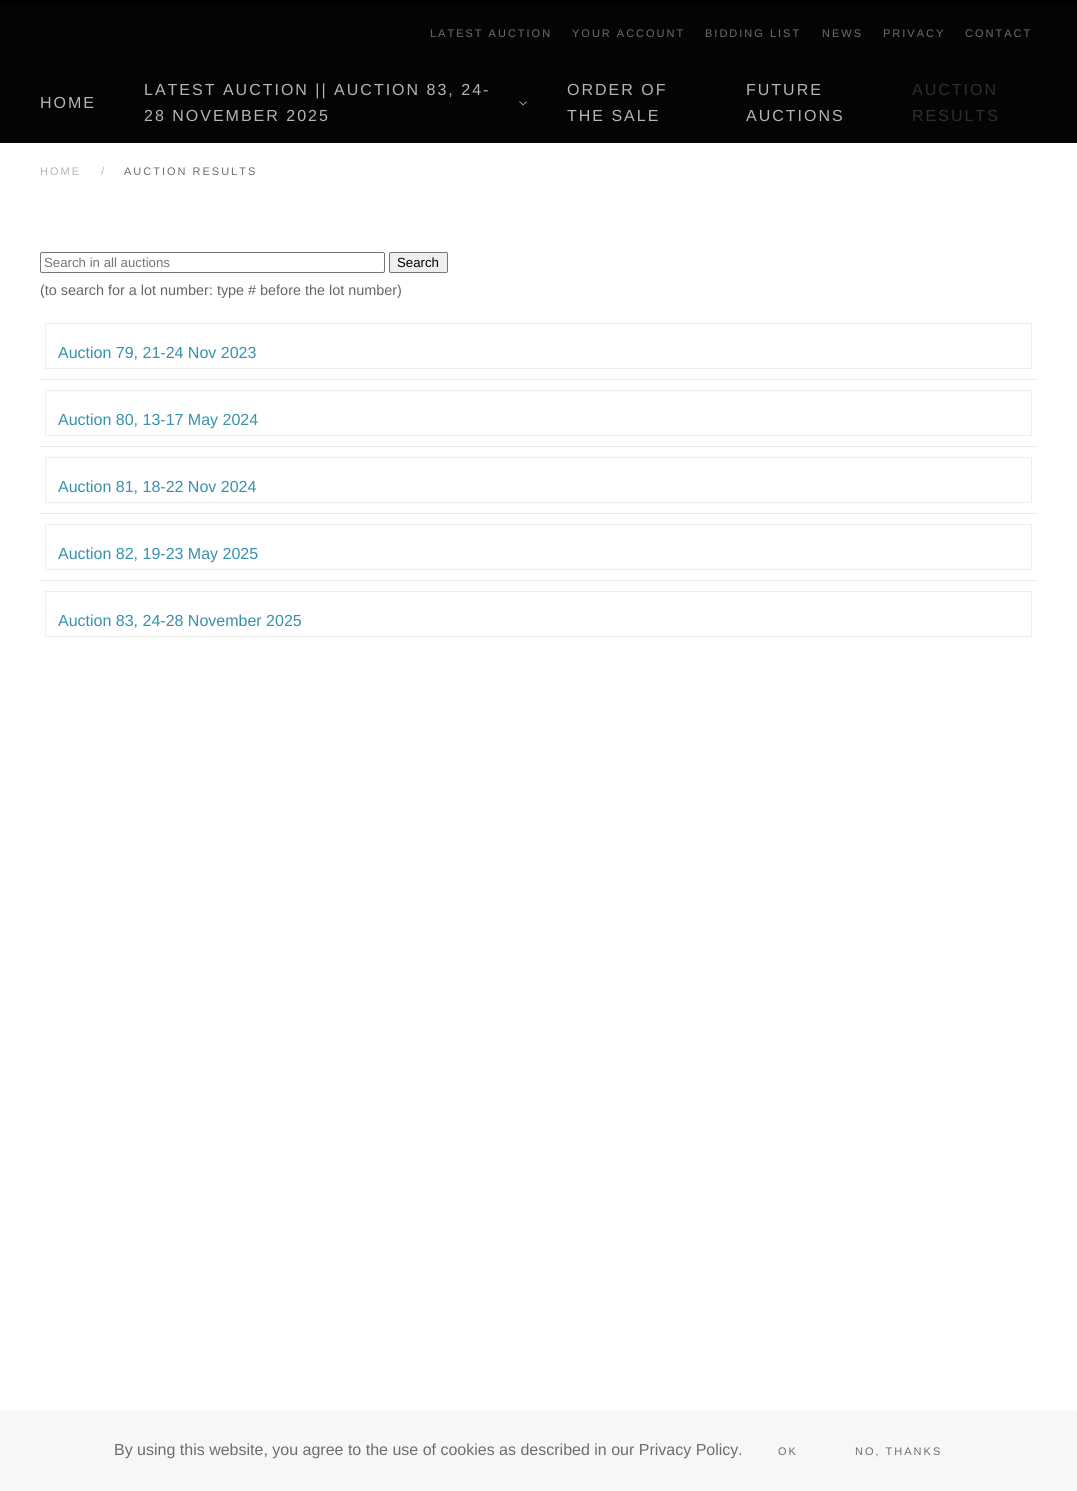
import math
import cairo

surface = cairo.ImageSurface(cairo.FORMAT_RGB24, 1077, 1491)
cr = cairo.Context(surface)
options = cairo.FontOptions()
options.set_hint_metrics(cairo.HINT_METRICS_OFF)
options.set_hint_style(cairo.HINT_STYLE_NONE)
cr.set_font_options(options)
cr.set_miter_limit(4)


def rgb(code):
    cr.set_source_rgb(*(v / 255 for v in bytes.fromhex(code[-6:])))


def tracked(x, y, s, letter, word):
    cr.move_to(x, y)
    for ch in s:
        cr.show_text(ch)
        cr.rel_move_to(letter + word * (ch == ' '), 0)


def rrect(x, y, w, h, r):
    cr.new_sub_path()
    for i, (u, v) in enumerate([(x + w - r, y + h - r), (x + r, y + h - r), (x + r, y + r), (x + w - r, y + r)]):
        cr.arc(u, v, r, i * math.pi / 2, (i + 1) * math.pi / 2)
    cr.close_path()


rgb("#000000")
cr.paint()
rgb("#050404")
cr.rectangle(0, 5, 1077, 138)
cr.fill()
cr.new_path()
cr.move_to(519.5, 101.5)
cr.line_to(523, 105)
cr.line_to(526.5, 101.5)
rgb("#b4b5ba")
cr.set_line_width(0.8)
cr.stroke()
rgb("#ffffff")
cr.rectangle(0, 143, 1077, 1268)
cr.fill()
rrect(40.5, 252.5, 344, 20, 1.5)
rgb("#767676")
cr.set_line_width(1)
cr.stroke()
rgb("#efefef")
rrect(389.5, 252.5, 58, 20, 1.5)
cr.fill_preserve()
rgb("#767676")
cr.stroke()
cr.rectangle(45.5, 323.5, 986, 45)
rgb("#eeeeee")
cr.stroke()
rgb("#e9e8e8")
cr.rectangle(40, 379, 997, 1)
cr.fill()
cr.rectangle(45.5, 390.5, 986, 45)
rgb("#eeeeee")
cr.stroke()
rgb("#e9e8e8")
cr.rectangle(40, 446, 997, 1)
cr.fill()
cr.rectangle(45.5, 457.5, 986, 45)
rgb("#eeeeee")
cr.stroke()
rgb("#e9e8e8")
cr.rectangle(40, 513, 997, 1)
cr.fill()
cr.rectangle(45.5, 524.5, 986, 45)
rgb("#eeeeee")
cr.stroke()
rgb("#e9e8e8")
cr.rectangle(40, 580, 997, 1)
cr.fill()
cr.rectangle(45.5, 591.5, 986, 45)
rgb("#eeeeee")
cr.stroke()
rgb("#f7f7f7")
cr.rectangle(0, 1411, 1077, 80)
cr.fill()
cr.select_font_face("Liberation Sans")
cr.set_font_size(11)
rgb("#6c6d74")
for x, y, s in [
    (430, 37, "LATEST AUCTION"),
    (572, 37, "YOUR ACCOUNT"),
    (705, 37, "BIDDING LIST"),
    (822, 37, "NEWS"),
    (883, 37, "PRIVACY"),
    (965, 37, "CONTACT"),
]:
    tracked(x, y, s, 2, 0)
cr.set_font_size(16)
rgb("#b4b5ba")
for x, y, s in [
    (40, 108, "HOME"),
    (144, 95, "LATEST AUCTION || AUCTION 83, 24-"),
    (144, 121, "28 NOVEMBER 2025"),
    (567, 95, "ORDER OF"),
    (567, 121, "THE SALE"),
    (746, 95, "FUTURE"),
    (746, 121, "AUCTIONS"),
]:
    tracked(x, y, s, 2, 0)
rgb("#2d2e33")
tracked(912, 95, "AUCTION", 2, 0)
tracked(912, 121, "RESULTS", 2, 0)
cr.set_font_size(11)
rgb("#b4b5ba")
tracked(40, 175, "HOME", 2, 0)
cr.move_to(101, 175)
cr.show_text("/")
rgb("#6c6d74")
tracked(124, 175, "AUCTION RESULTS", 2, 0)
cr.set_font_size(13.25)
rgb("#757575")
cr.move_to(44, 267)
cr.show_text("Search in all auctions")
rgb("#000000")
cr.move_to(397, 267)
cr.show_text("Search")
cr.set_font_size(14.4)
rgb("#666666")
cr.move_to(40, 295)
cr.show_text("(to search for a lot number: type # before the lot number)")
cr.set_font_size(16)
rgb("#3591ac")
for x, y, s in [
    (58, 358, "Auction 79, 21-24 Nov 2023"),
    (58, 425, "Auction 80, 13-17 May 2024"),
    (58, 492, "Auction 81, 18-22 Nov 2024"),
    (58, 559, "Auction 82, 19-23 May 2025"),
    (58, 626, "Auction 83, 24-28 November 2025"),
]:
    cr.move_to(x, y)
    cr.show_text(s)
rgb("#6c6d74")
cr.move_to(114, 1455)
cr.show_text("By using this website, you agree to the use of cookies as described in our Privacy Policy.")
cr.set_font_size(11)
tracked(778, 1455, "OK", 2, 0)
tracked(855, 1455, "NO, THANKS", 2, 0)
surface.write_to_png("page.png")
